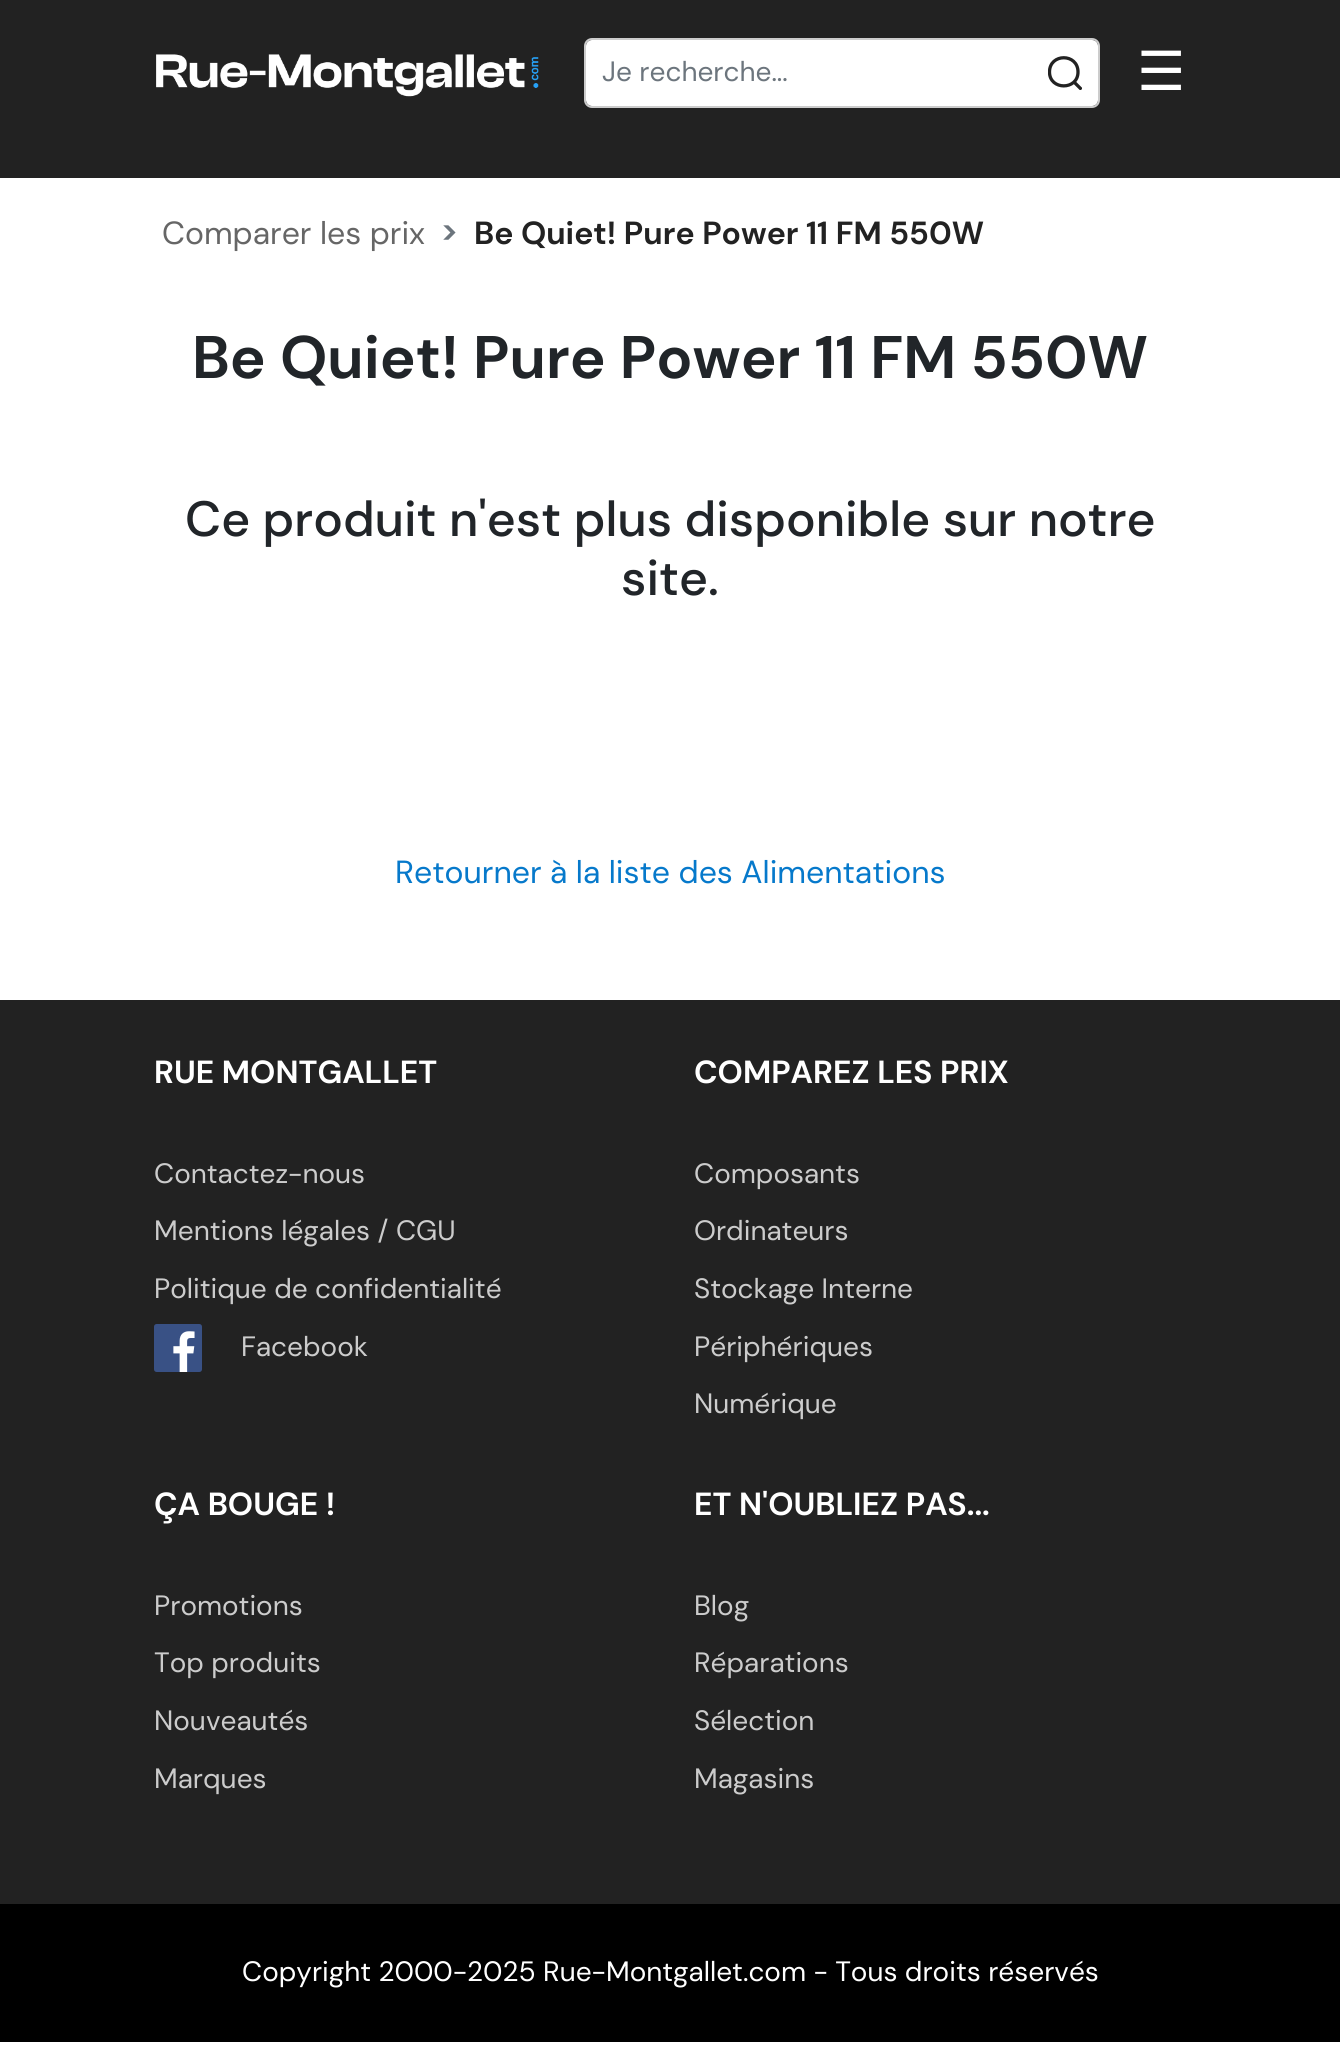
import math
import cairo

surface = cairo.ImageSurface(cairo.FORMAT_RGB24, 1340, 2056)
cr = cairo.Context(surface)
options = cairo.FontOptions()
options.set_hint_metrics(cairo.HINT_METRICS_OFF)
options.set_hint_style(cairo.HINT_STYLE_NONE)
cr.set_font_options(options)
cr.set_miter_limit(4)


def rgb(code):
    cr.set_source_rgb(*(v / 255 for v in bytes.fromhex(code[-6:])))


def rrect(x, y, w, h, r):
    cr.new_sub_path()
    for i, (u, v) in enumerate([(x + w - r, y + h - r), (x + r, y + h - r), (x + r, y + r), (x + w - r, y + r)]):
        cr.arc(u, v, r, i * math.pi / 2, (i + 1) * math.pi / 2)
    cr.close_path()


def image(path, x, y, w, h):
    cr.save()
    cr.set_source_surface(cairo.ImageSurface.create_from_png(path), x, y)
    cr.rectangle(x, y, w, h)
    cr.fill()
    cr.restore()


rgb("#ffffff")
cr.paint()
rgb("#222222")
cr.rectangle(0, 0, 1340, 178)
cr.fill()
image("img/1.png", 156, 54, 383, 43)
rgb("#ffffff")
rrect(586, 40, 512, 66, 6)
cr.fill()
cr.save()
cr.rectangle(1048, 56, 34, 34)
cr.clip()
cr.new_path()
cr.move_to(1081.5, 89.5)
cr.line_to(1074, 82)
cr.close_path()
cr.move_to(1078, 72)
cr.curve_to(1078, 90.5, 1049.5, 90.5, 1049.5, 72)
cr.curve_to(1049.5, 53, 1078, 53, 1078, 72)
cr.close_path()
rgb("#222222")
cr.set_line_width(3.3)
cr.set_line_cap(cairo.LINE_CAP_ROUND)
cr.stroke()
cr.restore()
rrect(585, 39, 514, 68, 7)
rgb("#cccccc")
cr.stroke()
rgb("#222222")
cr.rectangle(0, 1000, 1340, 904)
cr.fill()
image("img/2.png", 154, 1324, 48, 48)
rgb("#000000")
cr.rectangle(0, 1904, 1340, 138)
cr.fill()
cr.select_font_face("DM Sans")
cr.set_font_size(28)
rgb("#6c757d")
cr.move_to(602, 81)
cr.show_text("Je recherche...")
cr.select_font_face("DejaVu Sans")
cr.set_font_size(54)
rgb("#ffffff")
cr.move_to(1137, 90)
cr.show_text("☰")
cr.select_font_face("DM Sans")
cr.set_font_size(32)
rgb("#666666")
cr.move_to(162, 244)
cr.show_text("Comparer les prix")
cr.select_font_face("DM Sans", cairo.FONT_SLANT_NORMAL, cairo.FONT_WEIGHT_BOLD)
rgb("#6c757d")
cr.move_to(441, 244)
cr.show_text(">")
rgb("#222222")
cr.move_to(474, 244)
cr.show_text("Be Quiet! Pure Power 11 FM 550W")
cr.set_font_size(60)
rgb("#212529")
cr.move_to(192, 378)
cr.show_text("Be Quiet! Pure Power 11 FM 550W")
cr.select_font_face("DM Sans Medium")
cr.set_font_size(49.6)
cr.move_to(185, 536)
cr.show_text("Ce produit n'est plus disponible sur notre")
cr.move_to(621, 595)
cr.show_text("site.")
cr.select_font_face("DM Sans")
cr.set_font_size(32)
rgb("#0679cb")
cr.move_to(395, 883)
cr.show_text("Retourner à la liste des Alimentations")
cr.select_font_face("DM Sans", cairo.FONT_SLANT_NORMAL, cairo.FONT_WEIGHT_BOLD)
rgb("#ffffff")
cr.move_to(154, 1083)
cr.show_text("RUE MONTGALLET")
cr.select_font_face("DM Sans")
cr.set_font_size(28)
rgb("#cccccc")
for x, y, s in [
    (154, 1183, "Contactez-nous"),
    (154, 1240, "Mentions légales / CGU"),
    (154, 1298, "Politique de confidentialité"),
    (241, 1356, "Facebook"),
]:
    cr.move_to(x, y)
    cr.show_text(s)
cr.select_font_face("DM Sans", cairo.FONT_SLANT_NORMAL, cairo.FONT_WEIGHT_BOLD)
cr.set_font_size(32)
rgb("#ffffff")
cr.move_to(694, 1083)
cr.show_text("COMPAREZ LES PRIX")
cr.select_font_face("DM Sans")
cr.set_font_size(28)
rgb("#cccccc")
for x, y, s in [
    (694, 1183, "Composants"),
    (694, 1240, "Ordinateurs"),
    (694, 1298, "Stockage Interne"),
    (694, 1356, "Périphériques"),
    (694, 1413, "Numérique"),
]:
    cr.move_to(x, y)
    cr.show_text(s)
cr.select_font_face("DM Sans", cairo.FONT_SLANT_NORMAL, cairo.FONT_WEIGHT_BOLD)
cr.set_font_size(32)
rgb("#ffffff")
cr.move_to(154, 1515)
cr.show_text("ÇA BOUGE !")
cr.select_font_face("DM Sans")
cr.set_font_size(28)
rgb("#cccccc")
for x, y, s in [
    (154, 1615, "Promotions"),
    (154, 1672, "Top produits"),
    (154, 1730, "Nouveautés"),
    (154, 1788, "Marques"),
]:
    cr.move_to(x, y)
    cr.show_text(s)
cr.select_font_face("DM Sans", cairo.FONT_SLANT_NORMAL, cairo.FONT_WEIGHT_BOLD)
cr.set_font_size(32)
rgb("#ffffff")
cr.move_to(694, 1515)
cr.show_text("ET N'OUBLIEZ PAS...")
cr.select_font_face("DM Sans")
cr.set_font_size(28)
rgb("#cccccc")
for x, y, s in [
    (694, 1615, "Blog"),
    (694, 1672, "Réparations"),
    (694, 1730, "Sélection"),
    (694, 1788, "Magasins"),
]:
    cr.move_to(x, y)
    cr.show_text(s)
rgb("#ffffff")
cr.move_to(242, 1981)
cr.show_text("Copyright 2000-2025 Rue-Montgallet.com - Tous droits réservés")
surface.write_to_png("page.png")
